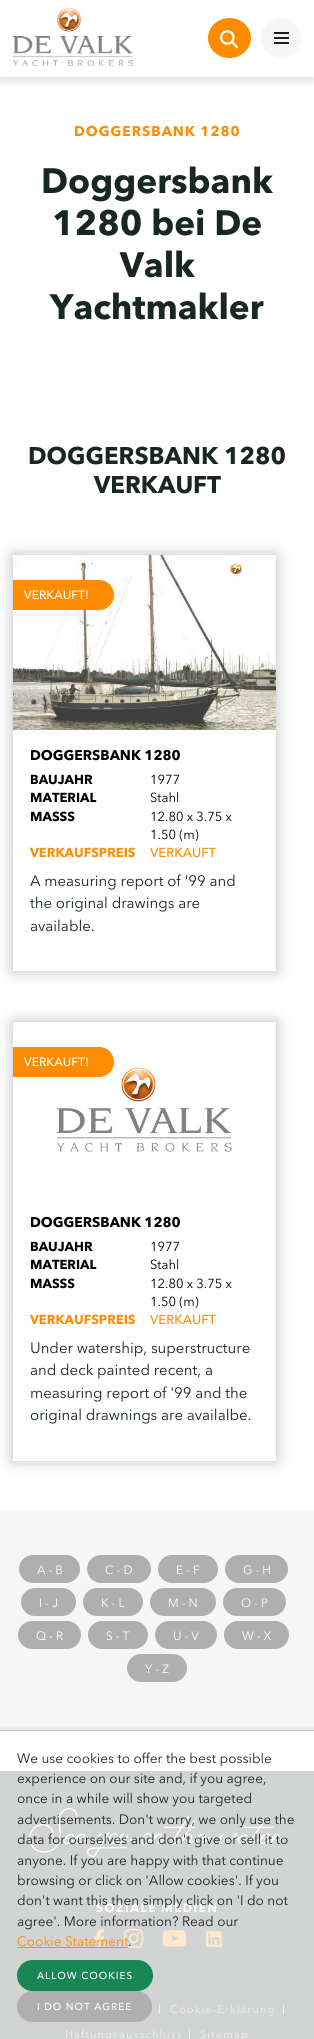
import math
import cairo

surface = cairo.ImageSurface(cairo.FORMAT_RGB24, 314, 2039)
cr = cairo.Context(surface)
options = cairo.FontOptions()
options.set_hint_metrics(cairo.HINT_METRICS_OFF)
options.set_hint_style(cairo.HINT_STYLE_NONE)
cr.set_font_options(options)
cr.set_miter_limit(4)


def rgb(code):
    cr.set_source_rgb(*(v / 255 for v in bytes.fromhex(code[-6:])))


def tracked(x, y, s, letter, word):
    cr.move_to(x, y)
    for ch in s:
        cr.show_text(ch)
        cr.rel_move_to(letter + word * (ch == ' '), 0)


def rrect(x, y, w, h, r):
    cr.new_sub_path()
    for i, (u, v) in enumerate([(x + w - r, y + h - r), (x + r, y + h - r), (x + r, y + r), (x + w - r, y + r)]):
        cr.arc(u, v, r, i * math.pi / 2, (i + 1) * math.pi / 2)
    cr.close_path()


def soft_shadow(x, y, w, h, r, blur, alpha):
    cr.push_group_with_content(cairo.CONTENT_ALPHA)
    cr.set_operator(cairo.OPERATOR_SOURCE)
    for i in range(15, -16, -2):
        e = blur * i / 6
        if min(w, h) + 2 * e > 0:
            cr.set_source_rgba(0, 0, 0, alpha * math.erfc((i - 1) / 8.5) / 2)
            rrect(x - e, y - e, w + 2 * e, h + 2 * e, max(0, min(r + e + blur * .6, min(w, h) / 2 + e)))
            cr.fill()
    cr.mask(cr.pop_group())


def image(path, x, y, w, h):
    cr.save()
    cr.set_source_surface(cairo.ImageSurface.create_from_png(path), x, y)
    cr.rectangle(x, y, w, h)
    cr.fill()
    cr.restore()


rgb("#ffffff")
cr.paint()
cr.save()
cr.rectangle(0, 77, 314, 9)
cr.clip()
rgb("#000000")
soft_shadow(0, 3, 314, 77, 0, 5, 0.15)
cr.restore()
image("img/1.png", 12, 8, 121, 58)
rgb("#ff8c00")
cr.new_path()
cr.move_to(229.5, 18)
cr.curve_to(241.5, 18, 251, 27, 251, 38)
cr.curve_to(251, 49, 241.5, 58, 229.5, 58)
cr.curve_to(217.5, 58, 208, 49, 208, 38)
cr.curve_to(208, 27, 217.5, 18, 229.5, 18)
cr.close_path()
cr.fill()
image("img/2.png", 220, 30, 18, 19)
rgb("#f6f6f6")
cr.arc(281, 38, 20, 0, 2 * math.pi)
cr.fill()
for x, y, w, h, color in [
    (274, 37, 15, 2, "#1d1d1b"),
    (274, 32, 15, 2, "#1d1d1b"),
    (274, 42, 15, 2, "#1d1d1b"),
]:
    rgb(color)
    cr.rectangle(x, y, w, h)
    cr.fill()
cr.save()
cr.set_fill_rule(cairo.FILL_RULE_EVEN_ODD)
cr.new_path()
cr.move_to(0, 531)
cr.line_to(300, 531)
cr.line_to(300, 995)
cr.line_to(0, 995)
cr.close_path()
cr.move_to(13, 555)
cr.line_to(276, 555)
cr.line_to(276, 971)
cr.line_to(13, 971)
cr.close_path()
cr.clip()
rgb("#182624")
soft_shadow(13, 555, 263, 416, 0, 7.5, 0.3)
cr.restore()
image("img/3.png", 13, 555, 263, 175)
rgb("#ff8c00")
cr.new_path()
cr.move_to(13, 580)
cr.line_to(99, 580)
cr.curve_to(107.5, 580, 114, 586.5, 114, 595)
cr.curve_to(114, 603.5, 107.5, 610, 99, 610)
cr.line_to(13, 610)
cr.close_path()
cr.fill()
cr.save()
cr.set_fill_rule(cairo.FILL_RULE_EVEN_ODD)
cr.new_path()
cr.move_to(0, 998)
cr.line_to(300, 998)
cr.line_to(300, 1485)
cr.line_to(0, 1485)
cr.close_path()
cr.move_to(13, 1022)
cr.line_to(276, 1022)
cr.line_to(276, 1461)
cr.line_to(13, 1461)
cr.close_path()
cr.clip()
rgb("#182624")
soft_shadow(13, 1022, 263, 439, 0, 7.5, 0.3)
cr.restore()
image("img/4.png", 13, 1022, 263, 175)
cr.new_path()
cr.move_to(13, 1047)
cr.line_to(99, 1047)
cr.curve_to(107.5, 1047, 114, 1053.5, 114, 1062)
cr.curve_to(114, 1070.5, 107.5, 1077, 99, 1077)
cr.line_to(13, 1077)
cr.close_path()
cr.fill()
rgb("#f6f6f6")
cr.rectangle(0, 1511, 314, 219)
cr.fill()
rgb("#afafb0")
rrect(19, 1555, 61, 28, 14)
cr.fill()
rrect(87, 1555, 64, 28, 14)
cr.fill()
rrect(158, 1555, 60, 28, 14)
cr.fill()
rrect(225, 1555, 63, 28, 14)
cr.fill()
rrect(21, 1588, 55, 28, 14)
cr.fill()
rrect(83, 1588, 60, 28, 14)
cr.fill()
rrect(150, 1588, 66, 28, 14)
cr.fill()
rrect(223, 1588, 63, 28, 14)
cr.fill()
rrect(18, 1621, 63, 28, 14)
cr.fill()
rrect(88, 1621, 60, 28, 14)
cr.fill()
rrect(155, 1621, 62, 28, 14)
cr.fill()
rrect(224, 1621, 65, 28, 14)
cr.fill()
rrect(127, 1654, 60, 28, 14)
cr.fill()
rgb("#d1d4d3")
cr.rectangle(0, 1771, 314, 268)
cr.fill()
image("img/5.png", 29, 1808, 256, 49)
image("img/6.png", 93, 1929, 12, 20)
image("img/7.png", 124, 1928, 20, 20)
image("img/8.png", 162, 1930, 25, 17)
image("img/9.png", 206, 1931, 16, 16)
for x, y, w, h, color in [
    (159, 2004, 1, 10, "#ededed"),
    (283, 2004, 1, 10, "#ededed"),
    (189, 2029, 1, 10, "#ededed"),
]:
    rgb(color)
    cr.rectangle(x, y, w, h)
    cr.fill()
cr.save()
cr.rectangle(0, 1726, 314, 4)
cr.clip()
rgb("#000000")
soft_shadow(0, 1728, 314, 309, 0, 2.5, 0.1)
cr.restore()
rgb("#cccccc")
cr.rectangle(0, 1730, 314, 1)
cr.fill()
rgb("#ff8c00")
cr.rectangle(17, 1947, 111, 1)
cr.fill()
rgb("#198754")
rrect(17, 1960, 136, 31, 15.5)
cr.fill()
rgb("#afafb0")
rrect(17, 1991, 135, 31, 15.5)
cr.fill()
cr.select_font_face("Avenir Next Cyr", cairo.FONT_SLANT_NORMAL, cairo.FONT_WEIGHT_BOLD)
cr.set_font_size(14)
rgb("#ff8c00")
tracked(74, 136, "DOGGERSBANK 1280", 1, 0)
cr.set_font_size(35)
rgb("#182624")
for x, y, s in [
    (41, 193, "Doggersbank"),
    (52, 235, "1280 bei De"),
    (120, 277, "Valk"),
    (50, 319, "Yachtmakler"),
]:
    cr.move_to(x, y)
    cr.show_text(s)
cr.set_font_size(24)
cr.move_to(28, 464)
cr.show_text("DOGGERSBANK 1280")
cr.move_to(94, 493)
cr.show_text("VERKAUFT")
cr.select_font_face("Avenir Next Cyr Medium")
cr.set_font_size(12)
rgb("#ffffff")
cr.move_to(24, 599)
cr.show_text("VERKAUFT!")
cr.select_font_face("Avenir Next Cyr", cairo.FONT_SLANT_NORMAL, cairo.FONT_WEIGHT_BOLD)
cr.set_font_size(14)
rgb("#000000")
cr.move_to(30, 760)
cr.show_text("DOGGERSBANK 1280")
cr.set_font_size(13)
cr.move_to(30, 784)
cr.show_text("BAUJAHR")
cr.select_font_face("Avenir Next Cyr")
cr.move_to(150, 784)
cr.show_text("1977")
cr.select_font_face("Avenir Next Cyr", cairo.FONT_SLANT_NORMAL, cairo.FONT_WEIGHT_BOLD)
cr.move_to(30, 802)
cr.show_text("MATERIAL")
cr.select_font_face("Avenir Next Cyr")
cr.move_to(150, 802)
cr.show_text("Stahl")
cr.select_font_face("Avenir Next Cyr", cairo.FONT_SLANT_NORMAL, cairo.FONT_WEIGHT_BOLD)
cr.move_to(30, 821)
cr.show_text("MASSS")
cr.select_font_face("Avenir Next Cyr")
cr.move_to(150, 821)
cr.show_text("12.80 x 3.75 x")
cr.move_to(150, 839)
cr.show_text("1.50 (m)")
cr.select_font_face("Avenir Next Cyr", cairo.FONT_SLANT_NORMAL, cairo.FONT_WEIGHT_BOLD)
rgb("#ff8c00")
cr.move_to(30, 857)
cr.show_text("VERKAUFSPREIS")
cr.select_font_face("Avenir Next Cyr Medium")
cr.move_to(150, 857)
cr.show_text("VERKAUFT")
cr.select_font_face("Avenir Next Cyr")
cr.set_font_size(15)
rgb("#182624")
for x, y, s in [
    (30, 886, "A measuring report of '99 and"),
    (30, 908, "the original drawings are"),
    (30, 931, "available."),
]:
    cr.move_to(x, y)
    cr.show_text(s)
cr.select_font_face("Avenir Next Cyr Medium")
cr.set_font_size(12)
rgb("#ffffff")
cr.move_to(24, 1066)
cr.show_text("VERKAUFT!")
cr.select_font_face("Avenir Next Cyr", cairo.FONT_SLANT_NORMAL, cairo.FONT_WEIGHT_BOLD)
cr.set_font_size(14)
rgb("#000000")
cr.move_to(30, 1227)
cr.show_text("DOGGERSBANK 1280")
cr.set_font_size(13)
cr.move_to(30, 1251)
cr.show_text("BAUJAHR")
cr.select_font_face("Avenir Next Cyr")
cr.move_to(150, 1251)
cr.show_text("1977")
cr.select_font_face("Avenir Next Cyr", cairo.FONT_SLANT_NORMAL, cairo.FONT_WEIGHT_BOLD)
cr.move_to(30, 1269)
cr.show_text("MATERIAL")
cr.select_font_face("Avenir Next Cyr")
cr.move_to(150, 1269)
cr.show_text("Stahl")
cr.select_font_face("Avenir Next Cyr", cairo.FONT_SLANT_NORMAL, cairo.FONT_WEIGHT_BOLD)
cr.move_to(30, 1288)
cr.show_text("MASSS")
cr.select_font_face("Avenir Next Cyr")
cr.move_to(150, 1288)
cr.show_text("12.80 x 3.75 x")
cr.move_to(150, 1306)
cr.show_text("1.50 (m)")
cr.select_font_face("Avenir Next Cyr", cairo.FONT_SLANT_NORMAL, cairo.FONT_WEIGHT_BOLD)
rgb("#ff8c00")
cr.move_to(30, 1324)
cr.show_text("VERKAUFSPREIS")
cr.select_font_face("Avenir Next Cyr Medium")
cr.move_to(150, 1324)
cr.show_text("VERKAUFT")
cr.select_font_face("Avenir Next Cyr")
cr.set_font_size(15)
rgb("#182624")
for x, y, s in [
    (30, 1353, "Under watership, superstructure"),
    (30, 1375, "and deck painted recent, a"),
    (30, 1398, "measuring report of '99 and the"),
    (30, 1420, "original drawnings are availalbe."),
]:
    cr.move_to(x, y)
    cr.show_text(s)
cr.set_font_size(12)
rgb("#ffffff")
for x, y, s in [
    (37, 1574, "A - B"),
    (105, 1574, "C - D"),
    (176, 1574, "E - F"),
    (243, 1574, "G - H"),
    (39, 1607, "I - J"),
    (101, 1607, "K - L"),
    (168, 1607, "M - N"),
    (241, 1607, "O - P"),
    (36, 1640, "Q - R"),
    (106, 1640, "S - T"),
    (173, 1640, "U - V"),
    (242, 1640, "W - X"),
    (145, 1673, "Y - Z"),
]:
    cr.move_to(x, y)
    cr.show_text(s)
cr.select_font_face("Avenir Next Cyr", cairo.FONT_SLANT_NORMAL, cairo.FONT_WEIGHT_BOLD)
tracked(96, 1912, "SOZIALE MEDIEN", 1.4, 0)
cr.select_font_face("Avenir Next Cyr")
cr.set_font_size(11)
rgb("#ededed")
for x, y, s in [
    (170, 2013, "Cookie-Erklärung"),
    (65, 2038, "Haftungsausschluss"),
    (200, 2038, "Sitemap"),
]:
    tracked(x, y, s, 1.1, 0)
cr.set_font_size(13.6)
rgb("#182624")
for x, y, s in [
    (17, 1763, "We use cookies to offer the best possible"),
    (17, 1783, "experience on our site and, if you agree,"),
    (17, 1803, "once in a while will show you targeted"),
    (17, 1824, "advertisements. Don't worry, we only use the"),
    (17, 1844, "data for ourselves and don't give or sell it to"),
    (17, 1865, "anyone. If you are happy with that continue"),
    (17, 1885, "browsing or click on 'Allow cookies'. If you"),
    (17, 1905, "don't want this then simply click on 'I do not"),
    (17, 1926, "agree'. More information? Read our"),
]:
    cr.move_to(x, y)
    cr.show_text(s)
rgb("#ff8c00")
cr.move_to(17, 1946)
cr.show_text("Cookie Statement")
rgb("#182624")
cr.move_to(128, 1946)
cr.show_text(".")
cr.select_font_face("Avenir Next Cyr Medium")
cr.set_font_size(10)
rgb("#ffffff")
tracked(37, 1979, "ALLOW COOKIES", 1, 0)
tracked(37, 2010, "I DO NOT AGREE", 1, 0)
surface.write_to_png("page.png")
